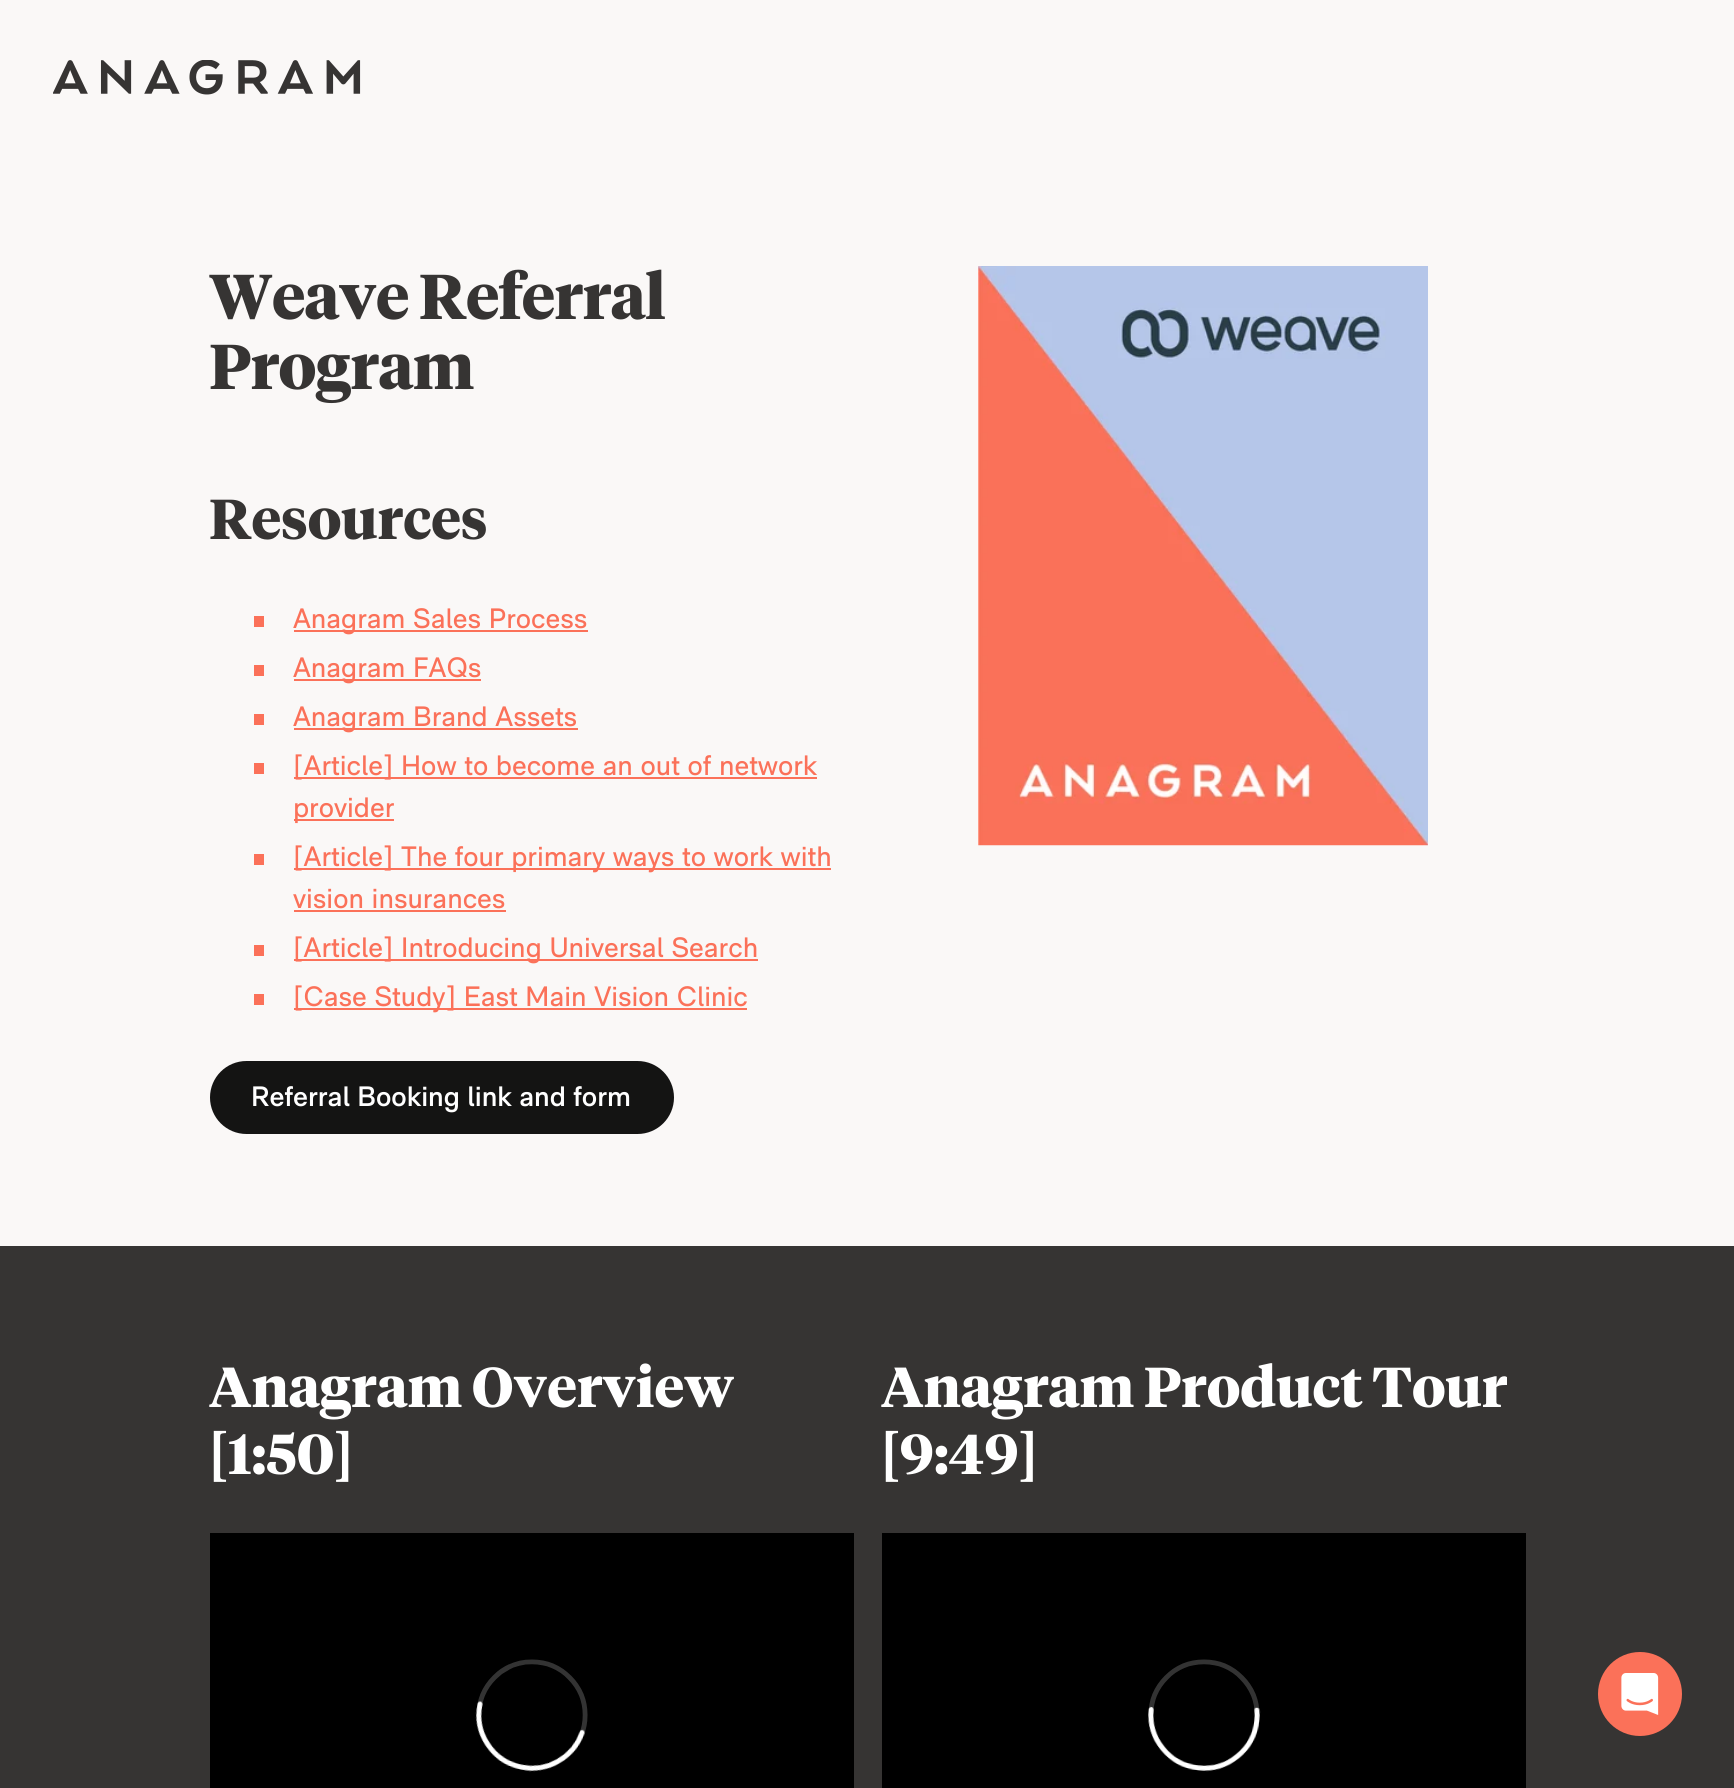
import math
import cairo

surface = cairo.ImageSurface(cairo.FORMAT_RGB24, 1734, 1788)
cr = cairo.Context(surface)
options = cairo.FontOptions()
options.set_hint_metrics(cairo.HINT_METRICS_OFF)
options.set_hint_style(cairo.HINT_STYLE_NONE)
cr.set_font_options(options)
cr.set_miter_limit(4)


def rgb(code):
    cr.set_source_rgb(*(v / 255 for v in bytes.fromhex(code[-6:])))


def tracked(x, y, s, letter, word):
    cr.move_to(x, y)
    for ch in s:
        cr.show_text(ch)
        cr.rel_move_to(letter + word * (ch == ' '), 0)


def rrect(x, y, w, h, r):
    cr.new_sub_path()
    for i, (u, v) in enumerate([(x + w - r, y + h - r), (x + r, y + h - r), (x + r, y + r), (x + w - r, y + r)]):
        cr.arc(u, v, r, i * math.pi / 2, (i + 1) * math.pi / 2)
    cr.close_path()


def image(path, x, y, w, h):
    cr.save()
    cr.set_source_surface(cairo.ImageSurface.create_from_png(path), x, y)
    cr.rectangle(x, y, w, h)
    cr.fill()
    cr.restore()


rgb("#faf8f7")
cr.paint()
image("img/1.png", 53, 60, 308, 35)
for x, y, w, h, color in [
    (254, 616, 10, 11, "#fb7159"),
    (294, 630, 294, 2, "#fb7159"),
    (254, 665, 10, 11, "#fb7159"),
    (294, 679, 187, 2, "#fb7159"),
    (254, 714, 10, 11, "#fb7159"),
    (294, 728, 284, 2, "#fb7159"),
    (254, 763, 10, 11, "#fb7159"),
    (294, 777, 523, 2, "#fb7159"),
    (294, 819, 100, 2, "#fb7159"),
    (254, 854, 10, 11, "#fb7159"),
    (294, 868, 537, 2, "#fb7159"),
    (294, 910, 212, 2, "#fb7159"),
    (254, 945, 10, 11, "#fb7159"),
    (294, 959, 464, 2, "#fb7159"),
    (254, 994, 10, 11, "#fb7159"),
    (294, 1008, 453, 2, "#fb7159"),
]:
    rgb(color)
    cr.rectangle(x, y, w, h)
    cr.fill()
rgb("#141413")
rrect(210, 1061, 464, 73, 36.5)
cr.fill()
image("img/2.png", 978, 266, 450, 580)
rgb("#363433")
cr.rectangle(0, 1246, 1734, 542)
cr.fill()
image("img/3.png", 210, 1533, 644, 255)
image("img/4.png", 882, 1533, 644, 255)
rgb("#fb7159")
cr.arc(1640, 1694, 42, 0, 2 * math.pi)
cr.fill()
image("img/5.png", 1621, 1673, 38, 42)
cr.select_font_face("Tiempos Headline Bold", cairo.FONT_SLANT_NORMAL, cairo.FONT_WEIGHT_BOLD)
cr.set_font_size(63)
rgb("#363433")
tracked(209, 319, "Weave Referral", -0.6, 0)
tracked(209, 389, "Program", -0.6, 0)
cr.set_font_size(56)
cr.move_to(209, 539)
cr.show_text("Resources")
cr.select_font_face("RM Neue")
cr.set_font_size(28)
rgb("#fb7159")
for x, y, s in [
    (293, 628, "Anagram Sales Process"),
    (293, 677, "Anagram FAQs"),
    (293, 726, "Anagram Brand Assets"),
    (293, 775, "[Article] How to become an out of network"),
    (293, 817, "provider"),
    (293, 866, "[Article] The four primary ways to work with"),
    (293, 908, "vision insurances"),
    (293, 957, "[Article] Introducing Universal Search"),
    (293, 1006, "[Case Study] East Main Vision Clinic"),
]:
    cr.move_to(x, y)
    cr.show_text(s)
cr.select_font_face("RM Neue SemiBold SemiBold")
rgb("#ffffff")
cr.move_to(251, 1106)
cr.show_text("Referral Booking link and form")
cr.select_font_face("Tiempos Headline Bold", cairo.FONT_SLANT_NORMAL, cairo.FONT_WEIGHT_BOLD)
cr.set_font_size(56)
for x, y, s in [
    (209, 1407, "Anagram Overview"),
    (209, 1474, "[1:50]"),
    (881, 1407, "Anagram Product Tour"),
    (881, 1474, "[9:49]"),
]:
    cr.move_to(x, y)
    cr.show_text(s)
surface.write_to_png("page.png")
